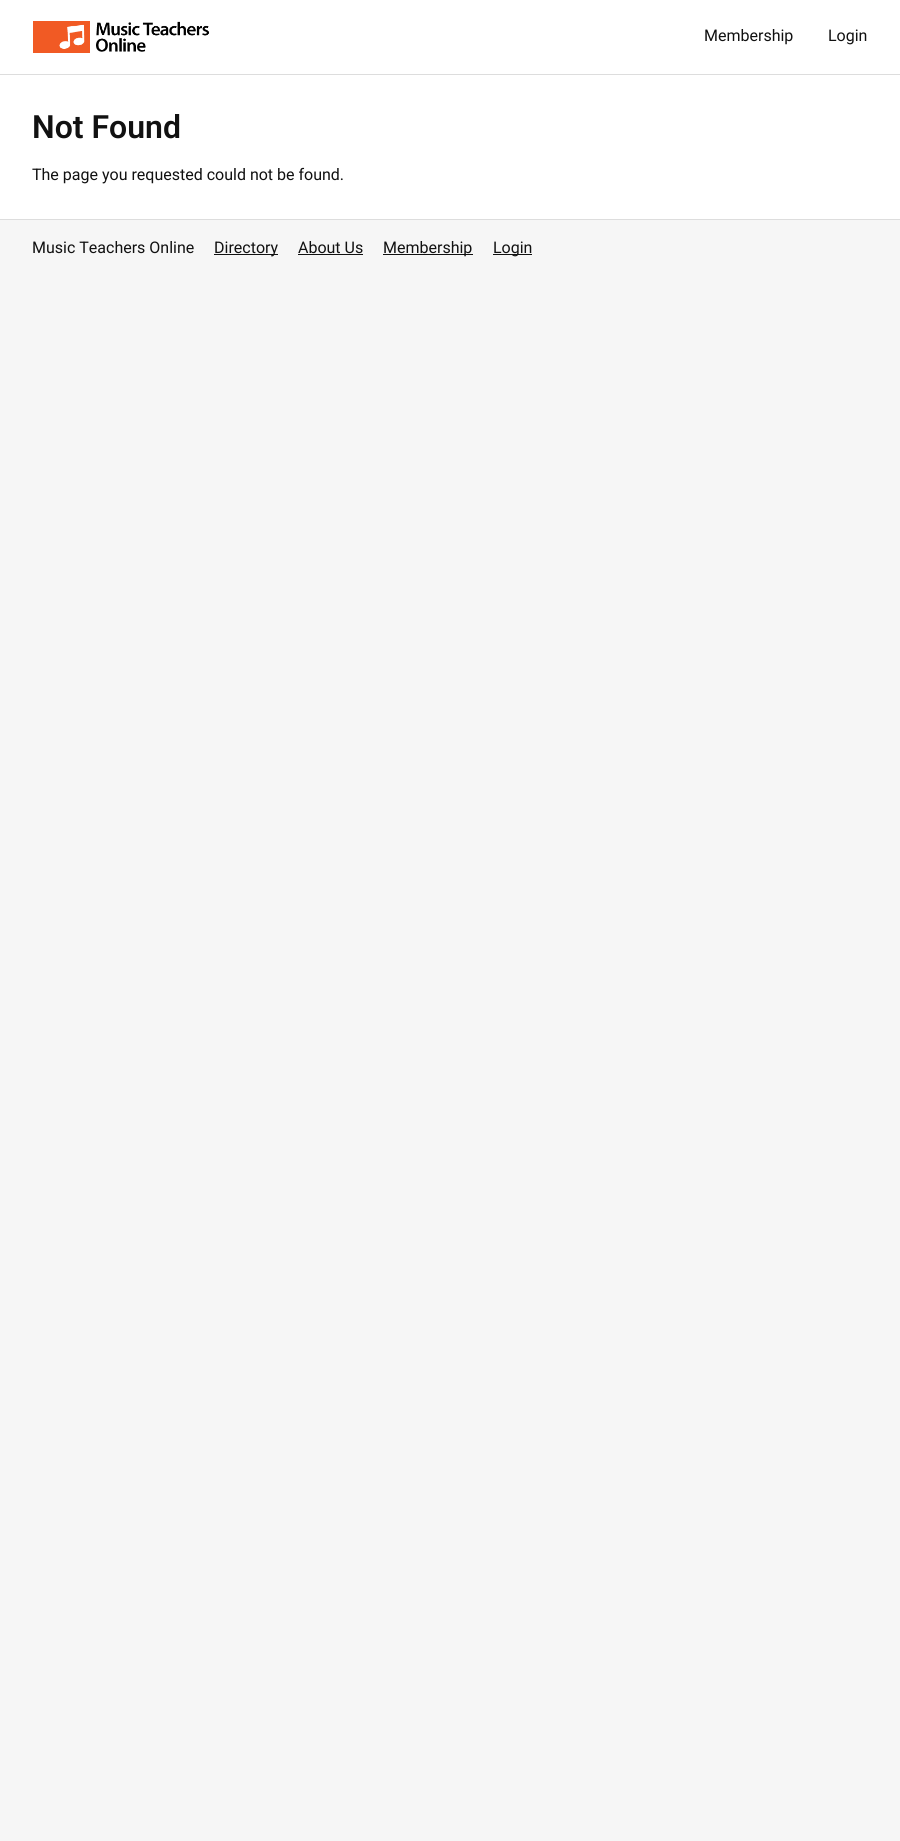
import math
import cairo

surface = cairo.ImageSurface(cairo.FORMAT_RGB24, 900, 1841)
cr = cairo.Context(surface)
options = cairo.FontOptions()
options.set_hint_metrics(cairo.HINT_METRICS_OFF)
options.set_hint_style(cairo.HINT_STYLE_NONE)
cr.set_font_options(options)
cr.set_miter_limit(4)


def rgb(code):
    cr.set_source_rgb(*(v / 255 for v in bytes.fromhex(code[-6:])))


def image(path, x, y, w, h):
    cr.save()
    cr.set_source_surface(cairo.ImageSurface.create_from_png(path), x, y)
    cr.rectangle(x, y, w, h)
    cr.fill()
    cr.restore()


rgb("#f6f6f6")
cr.paint()
rgb("#ffffff")
cr.rectangle(0, 0, 900, 74)
cr.fill()
rgb("#dddddd")
cr.rectangle(0, 74, 900, 1)
cr.fill()
image("img/1.png", 33, 21, 177, 32)
for x, y, w, h, color in [
    (0, 75, 900, 144, "#ffffff"),
    (0, 219, 900, 1, "#dddddd"),
    (214, 254, 64, 1, "#111111"),
    (298, 254, 65, 1, "#111111"),
    (383, 254, 90, 1, "#111111"),
    (493, 254, 39, 1, "#111111"),
]:
    rgb(color)
    cr.rectangle(x, y, w, h)
    cr.fill()
cr.select_font_face("Roboto")
cr.set_font_size(16)
cr.move_to(704, 41)
cr.show_text("Membership")
cr.move_to(828, 41)
cr.show_text("Login")
cr.select_font_face("Roboto SemiBold")
cr.set_font_size(32)
cr.move_to(32, 138)
cr.show_text("Not Found")
cr.select_font_face("Roboto")
cr.set_font_size(16)
for x, y, s in [
    (32, 180, "The page you requested could not be found."),
    (32, 253, "Music Teachers Online"),
    (214, 253, "Directory"),
    (298, 253, "About Us"),
    (383, 253, "Membership"),
    (493, 253, "Login"),
]:
    cr.move_to(x, y)
    cr.show_text(s)
surface.write_to_png("page.png")
